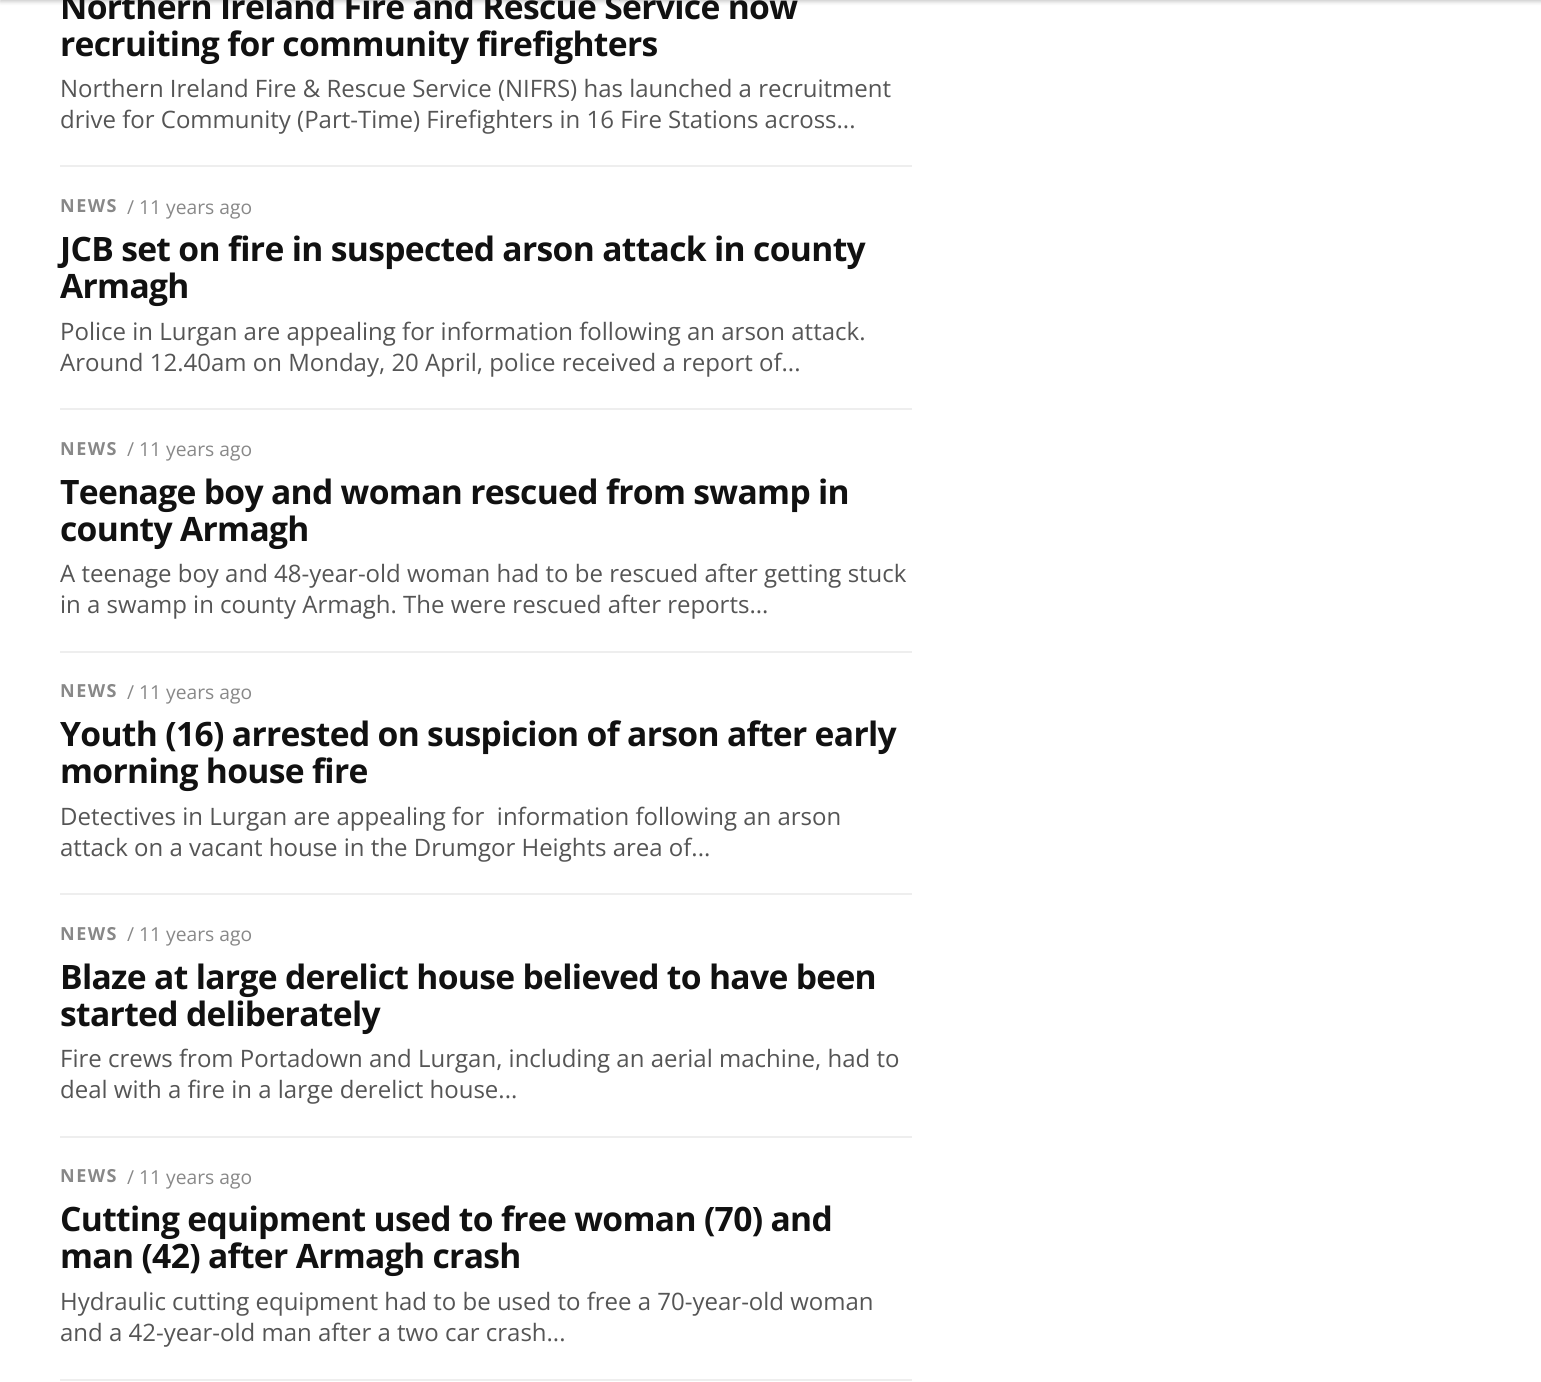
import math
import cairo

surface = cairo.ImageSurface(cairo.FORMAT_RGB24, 1541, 1382)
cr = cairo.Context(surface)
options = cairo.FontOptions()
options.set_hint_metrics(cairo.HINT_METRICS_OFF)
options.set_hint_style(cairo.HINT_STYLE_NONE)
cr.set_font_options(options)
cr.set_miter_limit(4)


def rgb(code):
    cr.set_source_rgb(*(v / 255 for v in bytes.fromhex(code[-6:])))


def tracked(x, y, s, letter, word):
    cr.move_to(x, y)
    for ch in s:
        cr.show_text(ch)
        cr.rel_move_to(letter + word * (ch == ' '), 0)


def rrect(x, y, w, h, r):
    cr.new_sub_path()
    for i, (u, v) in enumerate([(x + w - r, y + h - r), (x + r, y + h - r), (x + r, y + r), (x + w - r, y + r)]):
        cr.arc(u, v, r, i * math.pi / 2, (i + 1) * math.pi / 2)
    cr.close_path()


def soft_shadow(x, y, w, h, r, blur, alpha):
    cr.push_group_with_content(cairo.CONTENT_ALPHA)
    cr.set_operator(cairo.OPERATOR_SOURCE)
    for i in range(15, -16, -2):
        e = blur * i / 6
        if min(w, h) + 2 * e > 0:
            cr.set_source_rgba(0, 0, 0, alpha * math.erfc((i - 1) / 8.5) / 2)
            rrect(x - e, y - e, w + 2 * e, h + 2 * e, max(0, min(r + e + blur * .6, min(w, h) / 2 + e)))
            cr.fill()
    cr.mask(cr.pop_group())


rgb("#ffffff")
cr.paint()
rgb("#000000")
soft_shadow(0, -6, 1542, 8, 0, 2, 0.2)
for x, y, w, h, color in [
    (60, 165, 852, 2, "#eeeeee"),
    (60, 408, 852, 2, "#eeeeee"),
    (60, 651, 852, 2, "#eeeeee"),
    (60, 893, 852, 2, "#eeeeee"),
    (60, 1136, 852, 2, "#eeeeee"),
    (60, 1379, 852, 2, "#eeeeee"),
]:
    rgb(color)
    cr.rectangle(x, y, w, h)
    cr.fill()
cr.select_font_face("Open Sans", cairo.FONT_SLANT_NORMAL, cairo.FONT_WEIGHT_BOLD)
cr.set_font_size(33.6)
rgb("#111111")
tracked(60, 19, "Northern Ireland Fire and Rescue Service now", -0.67, 0)
tracked(60, 56, "recruiting for community firefighters", -0.67, 0)
cr.select_font_face("Open Sans")
cr.set_font_size(24)
rgb("#555555")
cr.move_to(60, 97)
cr.show_text("Northern Ireland Fire & Rescue Service (NIFRS) has launched a recruitment")
cr.move_to(60, 128)
cr.show_text("drive for Community (Part-Time) Firefighters in 16 Fire Stations across...")
cr.select_font_face("Open Sans", cairo.FONT_SLANT_NORMAL, cairo.FONT_WEIGHT_BOLD)
cr.set_font_size(18)
rgb("#888888")
tracked(60, 212, "NEWS", 1.5, 0)
cr.select_font_face("Open Sans")
cr.set_font_size(19.25)
cr.move_to(127, 214)
cr.show_text("/ 11 years ago")
cr.select_font_face("Open Sans", cairo.FONT_SLANT_NORMAL, cairo.FONT_WEIGHT_BOLD)
cr.set_font_size(33.6)
rgb("#111111")
tracked(60, 261, "JCB set on fire in suspected arson attack in county", -0.67, 0)
tracked(60, 298, "Armagh", -0.67, 0)
cr.select_font_face("Open Sans")
cr.set_font_size(24)
rgb("#555555")
cr.move_to(60, 340)
cr.show_text("Police in Lurgan are appealing for information following an arson attack.")
cr.move_to(60, 371)
cr.show_text("Around 12.40am on Monday, 20 April, police received a report of...")
cr.select_font_face("Open Sans", cairo.FONT_SLANT_NORMAL, cairo.FONT_WEIGHT_BOLD)
cr.set_font_size(18)
rgb("#888888")
tracked(60, 455, "NEWS", 1.5, 0)
cr.select_font_face("Open Sans")
cr.set_font_size(19.25)
cr.move_to(127, 456)
cr.show_text("/ 11 years ago")
cr.select_font_face("Open Sans", cairo.FONT_SLANT_NORMAL, cairo.FONT_WEIGHT_BOLD)
cr.set_font_size(33.6)
rgb("#111111")
tracked(60, 504, "Teenage boy and woman rescued from swamp in", -0.67, 0)
tracked(60, 541, "county Armagh", -0.67, 0)
cr.select_font_face("Open Sans")
cr.set_font_size(24)
rgb("#555555")
cr.move_to(60, 582)
cr.show_text("A teenage boy and 48-year-old woman had to be rescued after getting stuck")
cr.move_to(60, 613)
cr.show_text("in a swamp in county Armagh. The were rescued after reports...")
cr.select_font_face("Open Sans", cairo.FONT_SLANT_NORMAL, cairo.FONT_WEIGHT_BOLD)
cr.set_font_size(18)
rgb("#888888")
tracked(60, 697, "NEWS", 1.5, 0)
cr.select_font_face("Open Sans")
cr.set_font_size(19.25)
cr.move_to(127, 699)
cr.show_text("/ 11 years ago")
cr.select_font_face("Open Sans", cairo.FONT_SLANT_NORMAL, cairo.FONT_WEIGHT_BOLD)
cr.set_font_size(33.6)
rgb("#111111")
tracked(60, 746, "Youth (16) arrested on suspicion of arson after early", -0.67, 0)
tracked(60, 783, "morning house fire", -0.67, 0)
cr.select_font_face("Open Sans")
cr.set_font_size(24)
rgb("#555555")
cr.move_to(60, 825)
cr.show_text("Detectives in Lurgan are appealing for  information following an arson")
cr.move_to(60, 856)
cr.show_text("attack on a vacant house in the Drumgor Heights area of...")
cr.select_font_face("Open Sans", cairo.FONT_SLANT_NORMAL, cairo.FONT_WEIGHT_BOLD)
cr.set_font_size(18)
rgb("#888888")
tracked(60, 940, "NEWS", 1.5, 0)
cr.select_font_face("Open Sans")
cr.set_font_size(19.25)
cr.move_to(127, 941)
cr.show_text("/ 11 years ago")
cr.select_font_face("Open Sans", cairo.FONT_SLANT_NORMAL, cairo.FONT_WEIGHT_BOLD)
cr.set_font_size(33.6)
rgb("#111111")
tracked(60, 989, "Blaze at large derelict house believed to have been", -0.67, 0)
tracked(60, 1026, "started deliberately", -0.67, 0)
cr.select_font_face("Open Sans")
cr.set_font_size(24)
rgb("#555555")
cr.move_to(60, 1067)
cr.show_text("Fire crews from Portadown and Lurgan, including an aerial machine, had to")
cr.move_to(60, 1098)
cr.show_text("deal with a fire in a large derelict house...")
cr.select_font_face("Open Sans", cairo.FONT_SLANT_NORMAL, cairo.FONT_WEIGHT_BOLD)
cr.set_font_size(18)
rgb("#888888")
tracked(60, 1182, "NEWS", 1.5, 0)
cr.select_font_face("Open Sans")
cr.set_font_size(19.25)
cr.move_to(127, 1184)
cr.show_text("/ 11 years ago")
cr.select_font_face("Open Sans", cairo.FONT_SLANT_NORMAL, cairo.FONT_WEIGHT_BOLD)
cr.set_font_size(33.6)
rgb("#111111")
tracked(60, 1231, "Cutting equipment used to free woman (70) and", -0.67, 0)
tracked(60, 1268, "man (42) after Armagh crash", -0.67, 0)
cr.select_font_face("Open Sans")
cr.set_font_size(24)
rgb("#555555")
cr.move_to(60, 1310)
cr.show_text("Hydraulic cutting equipment had to be used to free a 70-year-old woman")
cr.move_to(60, 1341)
cr.show_text("and a 42-year-old man after a two car crash...")
surface.write_to_png("page.png")
